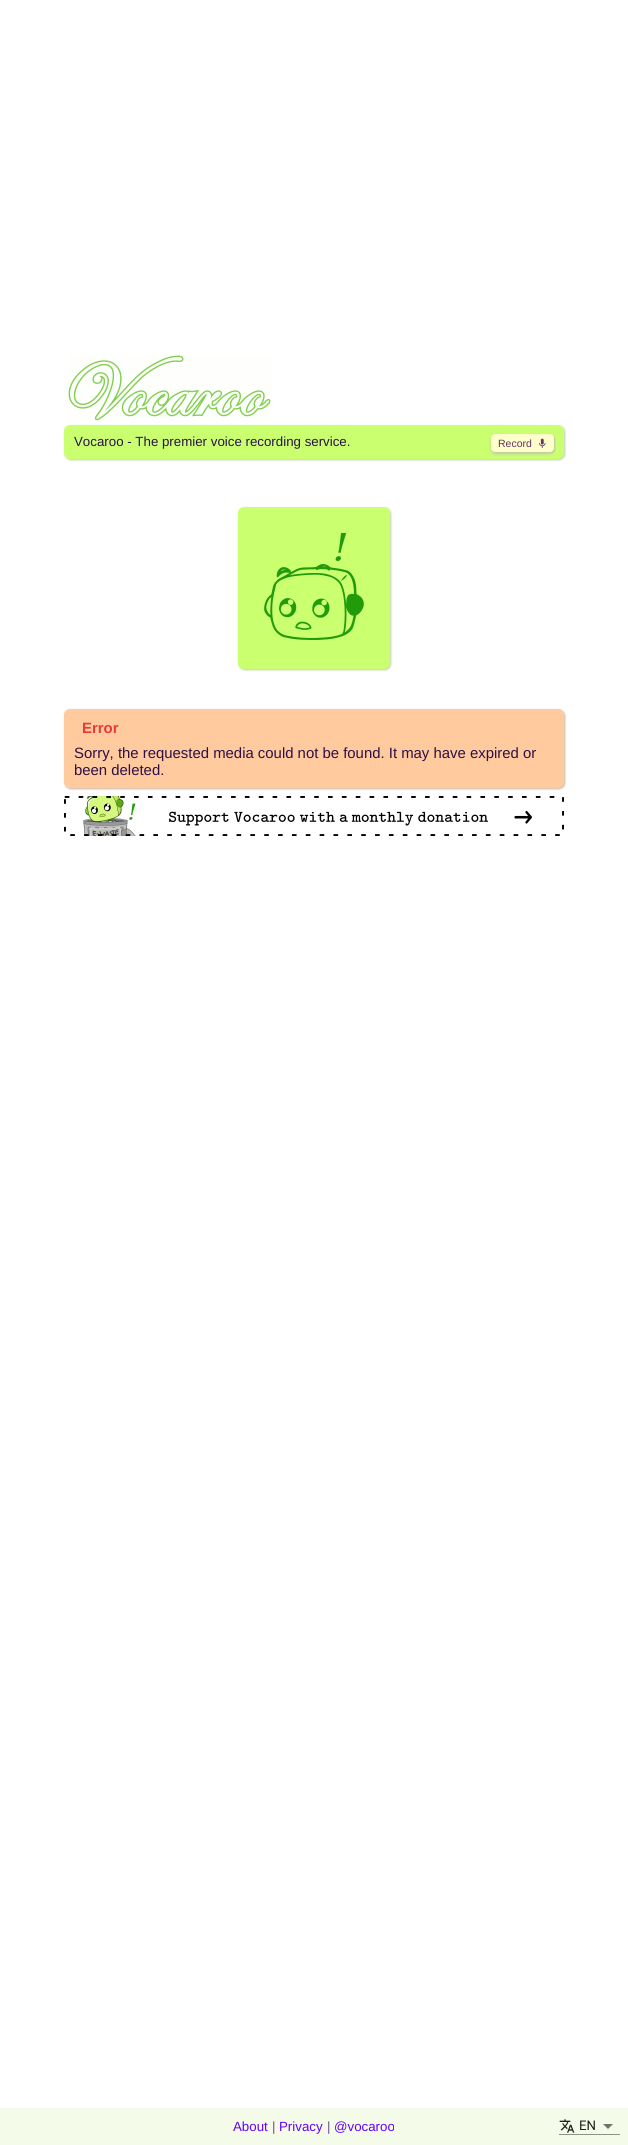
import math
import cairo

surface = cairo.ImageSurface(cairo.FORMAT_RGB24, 628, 2145)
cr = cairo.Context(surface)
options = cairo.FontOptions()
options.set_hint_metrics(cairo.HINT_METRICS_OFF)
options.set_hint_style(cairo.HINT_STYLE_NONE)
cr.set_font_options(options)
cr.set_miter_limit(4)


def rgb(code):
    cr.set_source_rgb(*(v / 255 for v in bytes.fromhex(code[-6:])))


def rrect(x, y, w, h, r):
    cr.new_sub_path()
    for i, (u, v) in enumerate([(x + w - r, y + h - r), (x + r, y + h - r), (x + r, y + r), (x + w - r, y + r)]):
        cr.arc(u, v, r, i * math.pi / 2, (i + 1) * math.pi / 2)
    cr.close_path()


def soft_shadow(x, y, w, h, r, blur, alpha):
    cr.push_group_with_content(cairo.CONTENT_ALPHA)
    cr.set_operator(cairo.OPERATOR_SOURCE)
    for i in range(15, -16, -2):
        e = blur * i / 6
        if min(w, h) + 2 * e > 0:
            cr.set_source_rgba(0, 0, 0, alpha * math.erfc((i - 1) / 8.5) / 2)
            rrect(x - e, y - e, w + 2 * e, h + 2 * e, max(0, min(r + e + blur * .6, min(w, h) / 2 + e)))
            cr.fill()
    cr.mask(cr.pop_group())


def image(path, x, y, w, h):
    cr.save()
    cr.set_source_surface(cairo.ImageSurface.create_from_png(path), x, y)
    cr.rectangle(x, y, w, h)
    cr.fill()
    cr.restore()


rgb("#ffffff")
cr.paint()
image("img/1.png", 68, 355, 203, 66)
rgb("#becfa3")
soft_shadow(65, 426, 500, 34, 6, 1, 1)
rgb("#caff70")
rrect(64, 425, 500, 34, 6)
cr.fill()
rgb("#becfa3")
soft_shadow(491, 436, 63, 18, 4, 1.5, 1)
soft_shadow(492, 435, 63, 18, 4, 0.5, 1)
rgb("#ffffcc")
rrect(491, 434, 63, 18, 4)
cr.fill()
image("img/2.png", 539, 438, 7, 10)
rgb("#becfa3")
soft_shadow(239, 508, 152, 162, 6, 1, 1)
rgb("#caff70")
rrect(238, 507, 152, 162, 6)
cr.fill()
image("img/3.png", 264, 533, 100, 107)
rgb("#cfb298")
soft_shadow(65, 710, 500, 79, 6, 1, 1)
rgb("#ffca9d")
rrect(64, 709, 500, 79, 6)
cr.fill()
image("img/4.png", 64, 796, 500, 40)
rgb("#f4fbe8")
cr.rectangle(0, 2108, 628, 37)
cr.fill()
image("img/5.png", 559, 2119, 16, 14)
rgb("#70736b")
cr.new_path()
cr.move_to(603, 2124)
cr.line_to(608, 2129)
cr.line_to(613, 2124)
cr.close_path()
cr.fill()
rgb("#8e9287")
cr.rectangle(559, 2134, 61, 1)
cr.fill()
cr.select_font_face("Liberation Sans")
cr.set_font_size(13.3)
rgb("#2d1045")
cr.move_to(74, 446)
cr.show_text("Vocaroo - The premier voice recording service.")
cr.set_font_size(10.5)
rgb("#633263")
cr.move_to(498, 447)
cr.show_text("Record")
cr.select_font_face("Liberation Sans", cairo.FONT_SLANT_NORMAL, cairo.FONT_WEIGHT_BOLD)
cr.set_font_size(14.9)
rgb("#e73936")
cr.move_to(82, 733)
cr.show_text("Error")
cr.select_font_face("Liberation Sans")
rgb("#2d1045")
cr.move_to(74, 758)
cr.show_text("Sorry, the requested media could not be found. It may have expired or")
cr.move_to(74, 775)
cr.show_text("been deleted.")
cr.set_font_size(13.3)
rgb("#6600ff")
cr.move_to(233, 2131)
cr.show_text("About")
rgb("#754c96")
cr.move_to(272, 2131)
cr.show_text("|")
rgb("#6600ff")
cr.move_to(279, 2131)
cr.show_text("Privacy")
rgb("#754c96")
cr.move_to(327, 2131)
cr.show_text("|")
rgb("#6600ff")
cr.move_to(334, 2131)
cr.show_text("@vocaroo")
cr.select_font_face("Roboto")
rgb("#20211e")
cr.move_to(579, 2130)
cr.show_text("EN")
surface.write_to_png("page.png")
